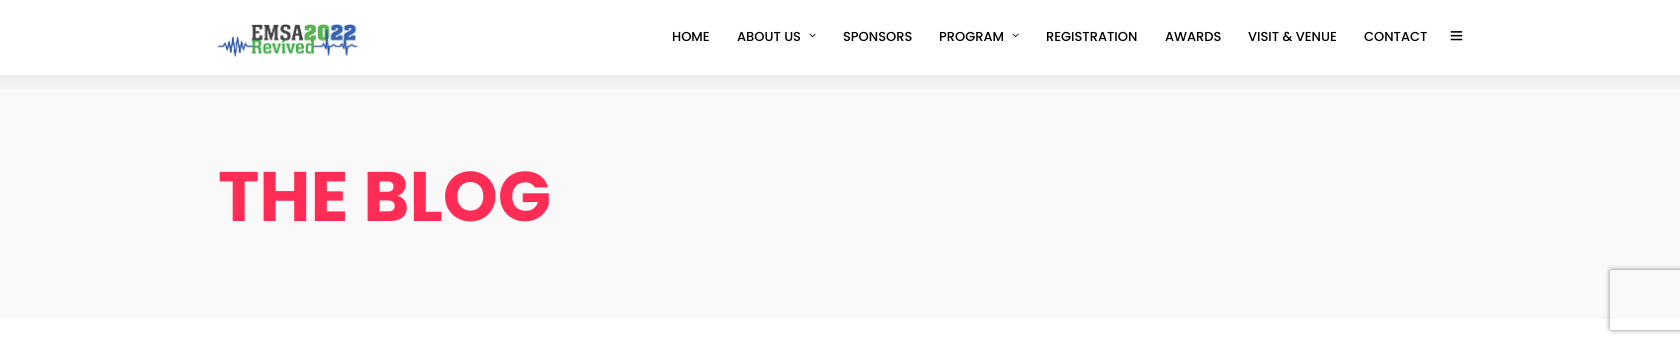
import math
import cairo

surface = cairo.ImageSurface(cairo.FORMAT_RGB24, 1680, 344)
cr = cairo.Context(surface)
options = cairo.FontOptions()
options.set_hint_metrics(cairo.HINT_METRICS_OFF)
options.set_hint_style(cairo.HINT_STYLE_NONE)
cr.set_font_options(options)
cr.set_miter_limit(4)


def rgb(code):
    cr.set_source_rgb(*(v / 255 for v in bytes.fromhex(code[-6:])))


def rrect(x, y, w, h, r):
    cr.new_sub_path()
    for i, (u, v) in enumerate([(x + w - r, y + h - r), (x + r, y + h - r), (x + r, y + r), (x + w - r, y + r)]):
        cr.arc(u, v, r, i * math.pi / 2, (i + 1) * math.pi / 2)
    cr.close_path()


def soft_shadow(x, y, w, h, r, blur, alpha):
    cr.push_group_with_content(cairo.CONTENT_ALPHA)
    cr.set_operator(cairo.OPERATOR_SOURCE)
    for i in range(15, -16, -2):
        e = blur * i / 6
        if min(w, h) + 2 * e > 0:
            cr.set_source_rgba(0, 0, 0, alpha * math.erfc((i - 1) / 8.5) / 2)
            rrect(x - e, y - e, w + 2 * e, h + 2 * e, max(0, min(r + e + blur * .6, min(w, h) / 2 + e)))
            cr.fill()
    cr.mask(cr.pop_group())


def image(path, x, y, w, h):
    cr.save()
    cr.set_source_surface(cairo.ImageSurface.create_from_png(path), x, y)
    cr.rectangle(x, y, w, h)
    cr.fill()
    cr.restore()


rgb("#ffffff")
cr.paint()
rgb("#f9f9f9")
cr.rectangle(0, 75, 1680, 244)
cr.fill()
cr.save()
cr.rectangle(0, 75, 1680, 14)
cr.clip()
rgb("#000000")
soft_shadow(0, 1, 1680, 75, 0, 15, 0.1)
cr.restore()
image("img/1.png", 218, 23, 140, 34)
image("img/2.png", 809, 33, 7, 5)
image("img/2.png", 1012, 33, 7, 5)
image("img/3.png", 1450, 31, 13, 10)
cr.save()
cr.set_fill_rule(cairo.FILL_RULE_EVEN_ODD)
cr.new_path()
cr.move_to(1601, 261)
cr.line_to(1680, 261)
cr.line_to(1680, 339)
cr.line_to(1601, 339)
cr.close_path()
cr.move_to(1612, 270)
cr.line_to(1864, 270)
cr.curve_to(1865, 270, 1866, 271, 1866, 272)
cr.line_to(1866, 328)
cr.curve_to(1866, 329, 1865, 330, 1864, 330)
cr.line_to(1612, 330)
cr.curve_to(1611, 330, 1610, 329, 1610, 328)
cr.line_to(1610, 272)
cr.curve_to(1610, 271, 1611, 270, 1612, 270)
cr.close_path()
cr.clip()
rgb("#808080")
soft_shadow(1610, 270, 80, 60, 2, 2.5, 1)
cr.restore()
cr.select_font_face("Poppins Medium")
cr.set_font_size(13)
rgb("#000000")
for x, y, s in [
    (672, 41, "HOME"),
    (737, 41, "ABOUT US"),
    (843, 41, "SPONSORS"),
    (939, 41, "PROGRAM"),
    (1046, 41, "REGISTRATION"),
    (1165, 41, "AWARDS"),
    (1248, 41, "VISIT & VENUE"),
    (1364, 41, "CONTACT"),
]:
    cr.move_to(x, y)
    cr.show_text(s)
cr.select_font_face("Poppins", cairo.FONT_SLANT_NORMAL, cairo.FONT_WEIGHT_BOLD)
cr.set_font_size(70)
rgb("#ff2d55")
cr.move_to(218, 221)
cr.show_text("THE BLOG")
surface.write_to_png("page.png")
